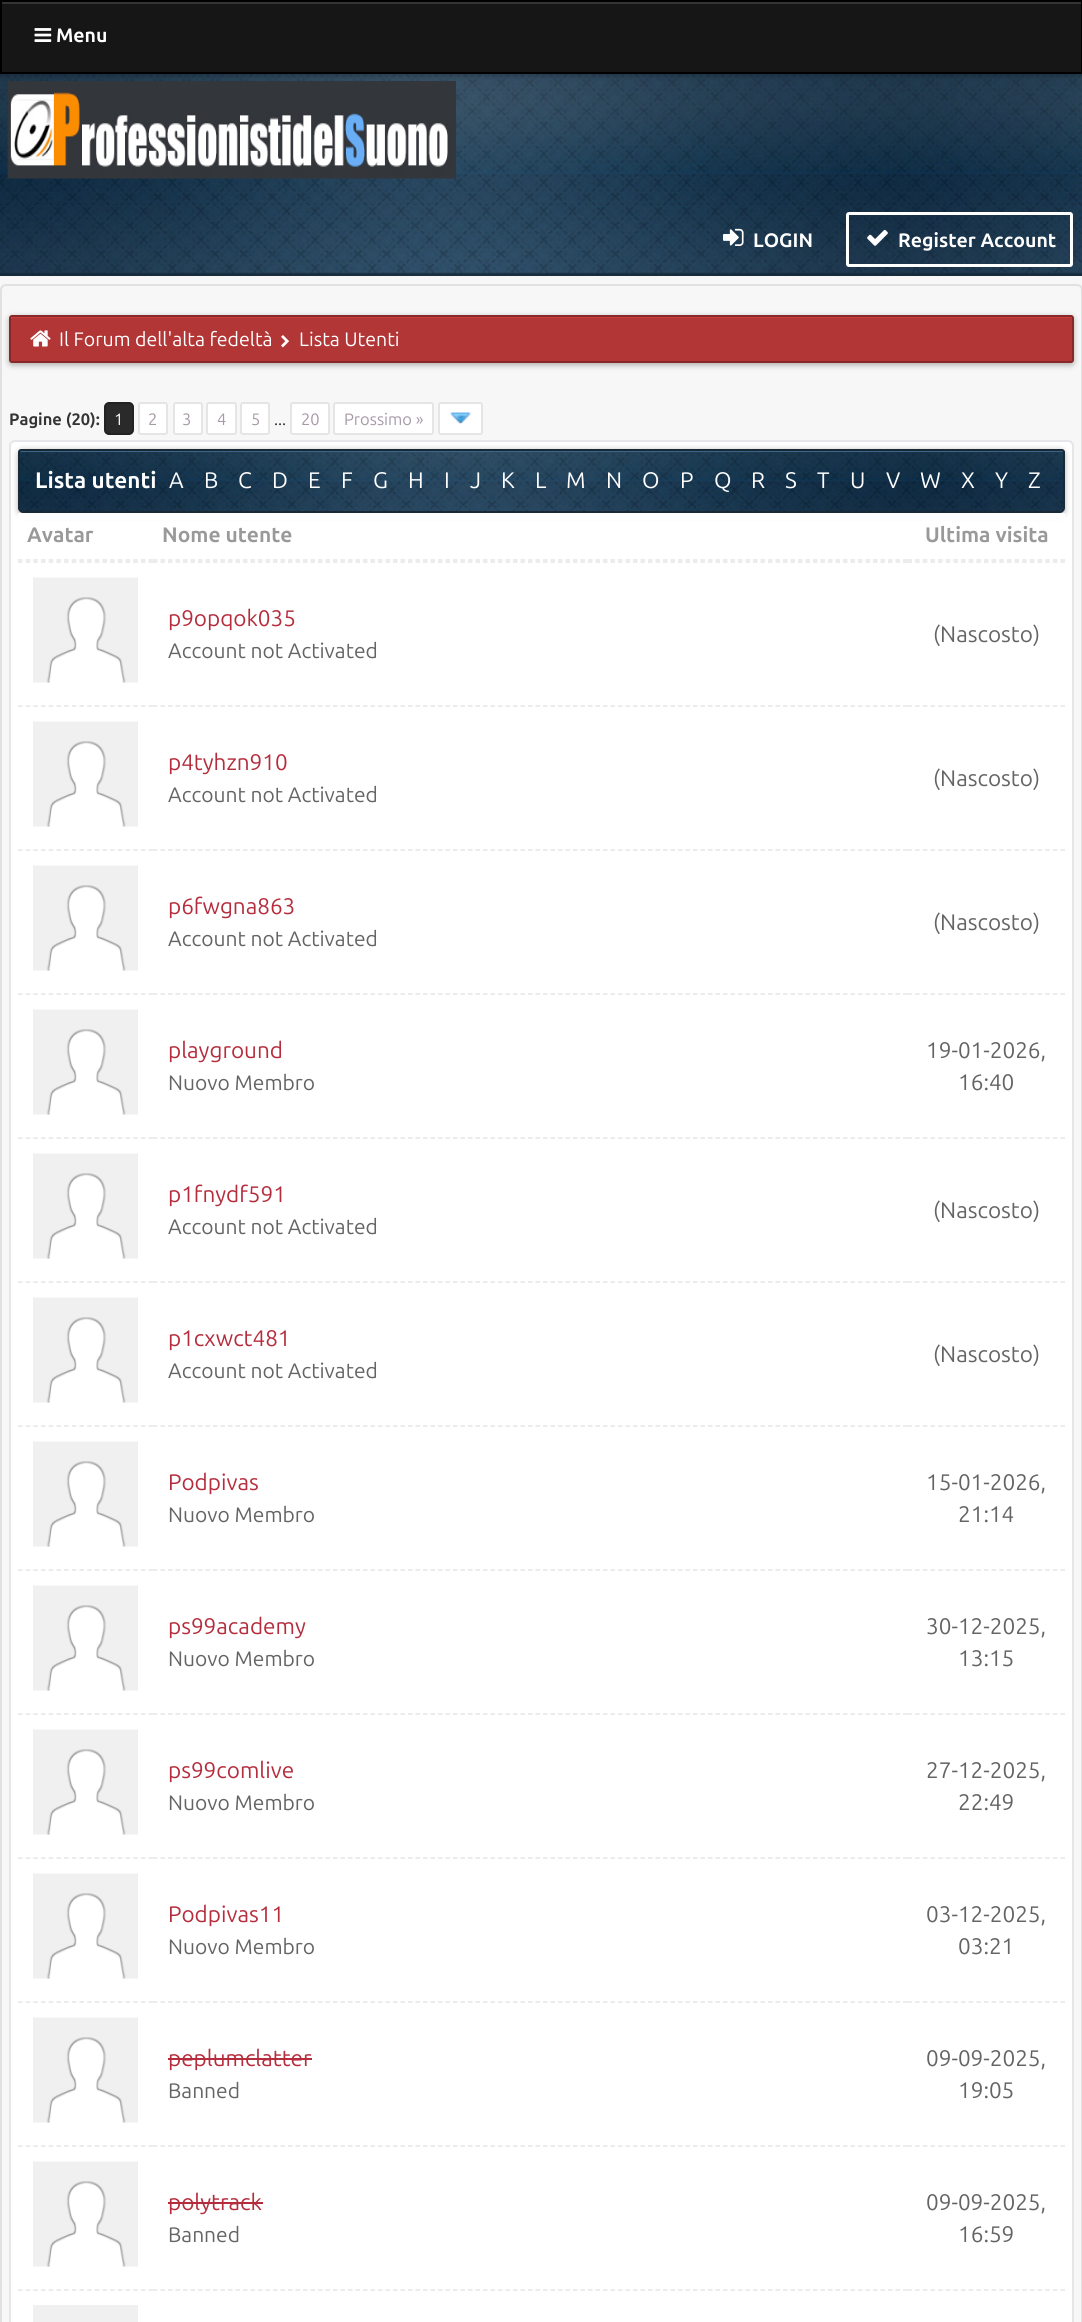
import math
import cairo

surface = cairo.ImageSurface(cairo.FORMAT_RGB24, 1082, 2322)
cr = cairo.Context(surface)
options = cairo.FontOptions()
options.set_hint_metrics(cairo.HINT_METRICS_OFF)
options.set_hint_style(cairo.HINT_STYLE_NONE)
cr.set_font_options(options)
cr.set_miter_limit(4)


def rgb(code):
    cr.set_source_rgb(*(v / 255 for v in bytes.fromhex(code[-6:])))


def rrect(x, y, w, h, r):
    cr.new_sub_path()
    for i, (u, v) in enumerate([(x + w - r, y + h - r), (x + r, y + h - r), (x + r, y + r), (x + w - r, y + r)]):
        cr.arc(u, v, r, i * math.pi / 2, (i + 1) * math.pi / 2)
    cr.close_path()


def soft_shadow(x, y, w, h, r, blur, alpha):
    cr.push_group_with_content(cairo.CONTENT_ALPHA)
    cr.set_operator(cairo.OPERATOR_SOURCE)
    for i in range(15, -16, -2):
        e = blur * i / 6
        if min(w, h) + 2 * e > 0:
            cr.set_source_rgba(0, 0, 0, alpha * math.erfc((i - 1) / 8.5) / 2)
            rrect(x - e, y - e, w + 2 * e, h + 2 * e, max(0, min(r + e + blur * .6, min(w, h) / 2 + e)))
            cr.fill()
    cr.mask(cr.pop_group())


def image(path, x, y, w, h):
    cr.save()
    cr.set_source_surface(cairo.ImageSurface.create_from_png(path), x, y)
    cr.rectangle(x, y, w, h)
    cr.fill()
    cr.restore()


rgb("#f7f7f7")
cr.paint()
image("img/1.png", 0, 74, 1082, 202)
image("img/3.png", 7, 81, 449, 98)
rgb("#000000")
soft_shadow(0, 2, 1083, 73, 0, 3, 0.3)
rgb("#161617")
cr.rectangle(2, 4, 1079, 68)
cr.fill()
rgb("#343435")
cr.rectangle(2, 2, 1080, 2)
cr.fill()
cr.rectangle(1, 1, 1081, 72)
rgb("#000000")
cr.stroke()
image("img/2.png", 34, 28, 18, 14)
image("img/4.png", 723, 228, 21, 18)
rrect(847.5, 213.5, 224, 52, 1.5)
rgb("#ffffff")
cr.set_line_width(3)
cr.stroke()
image("img/5.png", 867, 229, 21, 17)
rrect(1, 285, 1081, 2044, 5)
rgb("#e1e1e1")
cr.set_line_width(2)
cr.stroke()
rgb("#000000")
soft_shadow(9, 317, 1065, 48, 3, 3, 0.3)
rgb("#b23636")
rrect(11, 317, 1062, 45, 1.5)
cr.fill()
rgb("#cc3d3d")
cr.new_path()
cr.move_to(12, 318)
cr.line_to(1071, 318)
cr.curve_to(1072, 318, 1072, 319, 1072, 320)
cr.line_to(1072, 362)
cr.curve_to(1073, 362, 1073, 361, 1073, 360)
cr.line_to(1073, 318)
cr.curve_to(1073, 318, 1072, 317, 1072, 317)
cr.line_to(12, 317)
cr.curve_to(12, 317, 11, 318, 11, 318)
cr.close_path()
cr.fill()
rrect(10, 316, 1063, 46, 2)
rgb("#882929")
cr.stroke()
image("img/6.png", 30, 330, 21, 17)
image("img/7.png", 281, 335, 8, 13)
rgb("#ffffff")
rrect(334, 403, 99, 31, 2)
cr.fill_preserve()
rgb("#e5e5e5")
cr.stroke()
rgb("#ffffff")
rrect(439, 403, 43, 31, 2)
cr.fill_preserve()
rgb("#e5e5e5")
cr.stroke()
rgb("#2a2a2a")
rrect(105, 403, 28, 31, 4)
cr.fill_preserve()
rgb("#222222")
cr.stroke()
rgb("#ffffff")
rrect(139, 403, 28, 31, 2)
cr.fill_preserve()
rgb("#e5e5e5")
cr.stroke()
rgb("#ffffff")
rrect(174, 403, 28, 31, 2)
cr.fill_preserve()
rgb("#e5e5e5")
cr.stroke()
rgb("#ffffff")
rrect(207, 403, 29, 31, 2)
cr.fill_preserve()
rgb("#e5e5e5")
cr.stroke()
rgb("#ffffff")
rrect(241, 403, 28, 31, 2)
cr.fill_preserve()
rgb("#e5e5e5")
cr.stroke()
rgb("#ffffff")
rrect(291, 403, 38, 31, 2)
cr.fill_preserve()
rgb("#e5e5e5")
cr.stroke()
image("img/8.png", 450, 412, 22, 12)
rgb("#ffffff")
rrect(10, 441, 1063, 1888, 5)
cr.fill_preserve()
rgb("#e4e6e9")
cr.stroke()
rgb("#000000")
soft_shadow(18, 450, 1047, 65, 5, 3, 0.3)
image("img/9.png", 20, 451, 1043, 60)
rgb("#3d6485")
cr.new_path()
cr.move_to(21, 452)
cr.line_to(1062, 452)
cr.curve_to(1063, 452, 1064, 452, 1064, 453)
cr.curve_to(1064, 452, 1064, 450, 1062, 450)
cr.line_to(22, 450)
cr.curve_to(20, 450, 20, 452, 20, 453)
cr.curve_to(20, 452, 20, 452, 21, 452)
cr.close_path()
cr.fill()
cr.new_path()
cr.move_to(21, 450)
cr.line_to(1062, 450)
cr.curve_to(1063, 450, 1064, 451, 1064, 452)
cr.line_to(1064, 508)
cr.curve_to(1064, 510, 1062, 512, 1060, 512)
cr.line_to(23, 512)
cr.curve_to(21, 512, 19, 510, 19, 508)
cr.line_to(19, 452)
cr.curve_to(19, 451, 20, 450, 21, 450)
cr.close_path()
rgb("#1a2936")
cr.stroke()
rgb("#ffffff")
cr.rectangle(18, 513, 1047, 7)
cr.fill()
cr.new_path()
cr.move_to(18, 560)
cr.line_to(153, 560)
rgb("#e7e6e6")
cr.set_line_width(1.5)
cr.set_dash([4.5, 3.18])
cr.stroke()
cr.new_path()
cr.move_to(153, 560)
cr.line_to(907.5, 560)
cr.set_dash([4.5, 3])
cr.stroke()
cr.new_path()
cr.move_to(907.5, 560)
cr.line_to(1065, 560)
cr.set_dash([4.5, 3.15])
cr.stroke()
cr.new_path()
cr.move_to(18, 562)
cr.line_to(153, 562)
cr.set_dash([4.5, 3.18])
cr.stroke()
image("img/10.png", 33, 577, 105, 106)
cr.new_path()
cr.move_to(153, 562)
cr.line_to(907.5, 562)
cr.set_dash([4.5, 3])
cr.stroke()
cr.new_path()
cr.move_to(907.5, 562)
cr.line_to(1065, 562)
cr.set_dash([4.5, 3.15])
cr.stroke()
cr.new_path()
cr.move_to(18, 706)
cr.line_to(153, 706)
cr.set_dash([4.5, 3.18])
cr.stroke()
image("img/10.png", 33, 721, 105, 106)
cr.new_path()
cr.move_to(153, 706)
cr.line_to(907.5, 706)
cr.set_dash([4.5, 3])
cr.stroke()
cr.new_path()
cr.move_to(907.5, 706)
cr.line_to(1065, 706)
cr.set_dash([4.5, 3.15])
cr.stroke()
cr.new_path()
cr.move_to(18, 850)
cr.line_to(153, 850)
cr.set_dash([4.5, 3.18])
cr.stroke()
image("img/10.png", 33, 865, 105, 106)
cr.new_path()
cr.move_to(153, 850)
cr.line_to(907.5, 850)
cr.set_dash([4.5, 3])
cr.stroke()
cr.new_path()
cr.move_to(907.5, 850)
cr.line_to(1065, 850)
cr.set_dash([4.5, 3.15])
cr.stroke()
cr.new_path()
cr.move_to(18, 994)
cr.line_to(153, 994)
cr.set_dash([4.5, 3.18])
cr.stroke()
image("img/10.png", 33, 1009, 105, 106)
cr.new_path()
cr.move_to(153, 994)
cr.line_to(907.5, 994)
cr.set_dash([4.5, 3])
cr.stroke()
cr.new_path()
cr.move_to(907.5, 994)
cr.line_to(1065, 994)
cr.set_dash([4.5, 3.15])
cr.stroke()
cr.new_path()
cr.move_to(18, 1138)
cr.line_to(153, 1138)
cr.set_dash([4.5, 3.18])
cr.stroke()
image("img/10.png", 33, 1153, 105, 106)
cr.new_path()
cr.move_to(153, 1138)
cr.line_to(907.5, 1138)
cr.set_dash([4.5, 3])
cr.stroke()
cr.new_path()
cr.move_to(907.5, 1138)
cr.line_to(1065, 1138)
cr.set_dash([4.5, 3.15])
cr.stroke()
cr.new_path()
cr.move_to(18, 1282)
cr.line_to(153, 1282)
cr.set_dash([4.5, 3.18])
cr.stroke()
image("img/10.png", 33, 1297, 105, 106)
cr.new_path()
cr.move_to(153, 1282)
cr.line_to(907.5, 1282)
cr.set_dash([4.5, 3])
cr.stroke()
cr.new_path()
cr.move_to(907.5, 1282)
cr.line_to(1065, 1282)
cr.set_dash([4.5, 3.15])
cr.stroke()
cr.new_path()
cr.move_to(18, 1426)
cr.line_to(153, 1426)
cr.set_dash([4.5, 3.18])
cr.stroke()
image("img/10.png", 33, 1441, 105, 106)
cr.new_path()
cr.move_to(153, 1426)
cr.line_to(907.5, 1426)
cr.set_dash([4.5, 3])
cr.stroke()
cr.new_path()
cr.move_to(907.5, 1426)
cr.line_to(1065, 1426)
cr.set_dash([4.5, 3.15])
cr.stroke()
cr.new_path()
cr.move_to(18, 1570)
cr.line_to(153, 1570)
cr.set_dash([4.5, 3.18])
cr.stroke()
image("img/10.png", 33, 1585, 105, 106)
cr.new_path()
cr.move_to(153, 1570)
cr.line_to(907.5, 1570)
cr.set_dash([4.5, 3])
cr.stroke()
cr.new_path()
cr.move_to(907.5, 1570)
cr.line_to(1065, 1570)
cr.set_dash([4.5, 3.15])
cr.stroke()
cr.new_path()
cr.move_to(18, 1714)
cr.line_to(153, 1714)
cr.set_dash([4.5, 3.18])
cr.stroke()
image("img/10.png", 33, 1729, 105, 106)
cr.new_path()
cr.move_to(153, 1714)
cr.line_to(907.5, 1714)
cr.set_dash([4.5, 3])
cr.stroke()
cr.new_path()
cr.move_to(907.5, 1714)
cr.line_to(1065, 1714)
cr.set_dash([4.5, 3.15])
cr.stroke()
cr.new_path()
cr.move_to(18, 1858)
cr.line_to(153, 1858)
cr.set_dash([4.5, 3.18])
cr.stroke()
image("img/10.png", 33, 1873, 105, 106)
cr.new_path()
cr.move_to(153, 1858)
cr.line_to(907.5, 1858)
cr.set_dash([4.5, 3])
cr.stroke()
cr.new_path()
cr.move_to(907.5, 1858)
cr.line_to(1065, 1858)
cr.set_dash([4.5, 3.15])
cr.stroke()
cr.new_path()
cr.move_to(18, 2002)
cr.line_to(153, 2002)
cr.set_dash([4.5, 3.18])
cr.stroke()
image("img/10.png", 33, 2017, 105, 106)
cr.new_path()
cr.move_to(153, 2002)
cr.line_to(907.5, 2002)
cr.set_dash([4.5, 3])
cr.stroke()
rgb("#b52d3d")
cr.rectangle(168, 2058, 144, 2)
cr.fill()
cr.new_path()
cr.move_to(907.5, 2002)
cr.line_to(1065, 2002)
rgb("#e7e6e6")
cr.set_dash([4.5, 3.15])
cr.stroke()
cr.new_path()
cr.move_to(18, 2146)
cr.line_to(153, 2146)
cr.set_dash([4.5, 3.18])
cr.stroke()
image("img/10.png", 33, 2161, 105, 106)
cr.new_path()
cr.move_to(153, 2146)
cr.line_to(907.5, 2146)
cr.set_dash([4.5, 3])
cr.stroke()
rgb("#b52d3d")
cr.rectangle(168, 2202, 95, 2)
cr.fill()
cr.new_path()
cr.move_to(907.5, 2146)
cr.line_to(1065, 2146)
rgb("#e7e6e6")
cr.set_dash([4.5, 3.15])
cr.stroke()
cr.new_path()
cr.move_to(18, 2290)
cr.line_to(153, 2290)
cr.set_dash([4.5, 3.18])
cr.stroke()
rgb("#f0f0f0")
cr.rectangle(33, 2305, 105, 17)
cr.fill()
cr.new_path()
cr.move_to(153, 2290)
cr.line_to(907.5, 2290)
rgb("#e7e6e6")
cr.set_dash([4.5, 3])
cr.stroke()
cr.new_path()
cr.move_to(907.5, 2290)
cr.line_to(1065, 2290)
cr.set_dash([4.5, 3.15])
cr.stroke()
cr.select_font_face("Ubuntu", cairo.FONT_SLANT_NORMAL, cairo.FONT_WEIGHT_BOLD)
cr.set_font_size(19.5)
rgb("#ffffff")
for x, y, s in [
    (56, 42, "Menu"),
    (753, 247, "LOGIN"),
    (898, 247, "Register Account"),
]:
    cr.move_to(x, y)
    cr.show_text(s)
cr.select_font_face("Ubuntu")
cr.move_to(59, 346)
cr.show_text("Il Forum dell'alta fedeltà")
cr.move_to(299, 346)
cr.show_text("Lista Utenti")
cr.select_font_face("Ubuntu", cairo.FONT_SLANT_NORMAL, cairo.FONT_WEIGHT_BOLD)
cr.set_font_size(16.5)
rgb("#333333")
cr.move_to(9, 425)
cr.show_text("Pagine (20):")
cr.select_font_face("Ubuntu")
rgb("#a599a5")
cr.move_to(344, 425)
cr.show_text("Prossimo »")
rgb("#ffffff")
cr.move_to(114, 425)
cr.show_text("1")
rgb("#a599a5")
for x, y, s in [
    (148, 425, "2"),
    (182, 425, "3"),
    (217, 425, "4"),
    (251, 425, "5"),
]:
    cr.move_to(x, y)
    cr.show_text(s)
rgb("#333333")
cr.move_to(274, 425)
cr.show_text("...")
rgb("#a599a5")
cr.move_to(301, 425)
cr.show_text("20")
cr.select_font_face("Ubuntu", cairo.FONT_SLANT_NORMAL, cairo.FONT_WEIGHT_BOLD)
cr.set_font_size(22.5)
rgb("#ffffff")
cr.move_to(35, 488)
cr.show_text("Lista utenti")
cr.select_font_face("Ubuntu")
for x, y, s in [
    (169, 488, "A"),
    (204, 488, "B"),
    (238, 488, "C"),
    (272, 488, "D"),
    (308, 488, "E"),
    (341, 488, "F"),
    (373, 488, "G"),
    (408, 488, "H"),
    (444, 488, "I"),
    (470, 488, "J"),
    (501, 488, "K"),
    (535, 488, "L"),
    (566, 488, "M"),
    (606, 488, "N"),
    (642, 488, "O"),
    (680, 488, "P"),
    (714, 488, "Q"),
    (751, 488, "R"),
    (785, 488, "S"),
    (817, 488, "T"),
    (850, 488, "U"),
    (886, 488, "V"),
    (920, 488, "W"),
    (961, 488, "X"),
    (995, 488, "Y"),
    (1028, 488, "Z"),
]:
    cr.move_to(x, y)
    cr.show_text(s)
cr.select_font_face("Ubuntu", cairo.FONT_SLANT_NORMAL, cairo.FONT_WEIGHT_BOLD)
cr.set_font_size(21)
rgb("#999999")
for x, y, s in [
    (27, 542, "Avatar"),
    (162, 542, "Nome utente"),
    (925, 542, "Ultima visita"),
]:
    cr.move_to(x, y)
    cr.show_text(s)
cr.select_font_face("Ubuntu")
cr.set_font_size(22.5)
rgb("#b52d3d")
cr.move_to(168, 626)
cr.show_text("p9opqok035")
cr.set_font_size(21)
rgb("#646464")
cr.move_to(168, 658)
cr.show_text("Account not Activated")
cr.set_font_size(22.5)
cr.move_to(933, 642)
cr.show_text("(Nascosto)")
rgb("#b52d3d")
cr.move_to(168, 770)
cr.show_text("p4tyhzn910")
cr.set_font_size(21)
rgb("#646464")
cr.move_to(168, 802)
cr.show_text("Account not Activated")
cr.set_font_size(22.5)
cr.move_to(933, 786)
cr.show_text("(Nascosto)")
rgb("#b52d3d")
cr.move_to(168, 914)
cr.show_text("p6fwgna863")
cr.set_font_size(21)
rgb("#646464")
cr.move_to(168, 946)
cr.show_text("Account not Activated")
cr.set_font_size(22.5)
cr.move_to(933, 930)
cr.show_text("(Nascosto)")
rgb("#b52d3d")
cr.move_to(168, 1058)
cr.show_text("playground")
cr.set_font_size(21)
rgb("#646464")
cr.move_to(168, 1090)
cr.show_text("Nuovo Membro")
cr.set_font_size(22.5)
cr.move_to(926, 1058)
cr.show_text("19-01-2026,")
cr.move_to(958, 1090)
cr.show_text("16:40")
rgb("#b52d3d")
cr.move_to(168, 1202)
cr.show_text("p1fnydf591")
cr.set_font_size(21)
rgb("#646464")
cr.move_to(168, 1234)
cr.show_text("Account not Activated")
cr.set_font_size(22.5)
cr.move_to(933, 1218)
cr.show_text("(Nascosto)")
rgb("#b52d3d")
cr.move_to(168, 1346)
cr.show_text("p1cxwct481")
cr.set_font_size(21)
rgb("#646464")
cr.move_to(168, 1378)
cr.show_text("Account not Activated")
cr.set_font_size(22.5)
cr.move_to(933, 1362)
cr.show_text("(Nascosto)")
rgb("#b52d3d")
cr.move_to(168, 1490)
cr.show_text("Podpivas")
cr.set_font_size(21)
rgb("#646464")
cr.move_to(168, 1522)
cr.show_text("Nuovo Membro")
cr.set_font_size(22.5)
cr.move_to(926, 1490)
cr.show_text("15-01-2026,")
cr.move_to(958, 1522)
cr.show_text("21:14")
rgb("#b52d3d")
cr.move_to(168, 1634)
cr.show_text("ps99academy")
cr.set_font_size(21)
rgb("#646464")
cr.move_to(168, 1666)
cr.show_text("Nuovo Membro")
cr.set_font_size(22.5)
cr.move_to(926, 1634)
cr.show_text("30-12-2025,")
cr.move_to(958, 1666)
cr.show_text("13:15")
rgb("#b52d3d")
cr.move_to(168, 1778)
cr.show_text("ps99comlive")
cr.set_font_size(21)
rgb("#646464")
cr.move_to(168, 1810)
cr.show_text("Nuovo Membro")
cr.set_font_size(22.5)
cr.move_to(926, 1778)
cr.show_text("27-12-2025,")
cr.move_to(958, 1810)
cr.show_text("22:49")
rgb("#b52d3d")
cr.move_to(168, 1922)
cr.show_text("Podpivas11")
cr.set_font_size(21)
rgb("#646464")
cr.move_to(168, 1954)
cr.show_text("Nuovo Membro")
cr.set_font_size(22.5)
cr.move_to(926, 1922)
cr.show_text("03-12-2025,")
cr.move_to(958, 1954)
cr.show_text("03:21")
rgb("#b52d3d")
cr.move_to(168, 2066)
cr.show_text("peplumclatter")
cr.set_font_size(21)
rgb("#646464")
cr.move_to(168, 2098)
cr.show_text("Banned")
cr.set_font_size(22.5)
cr.move_to(926, 2066)
cr.show_text("09-09-2025,")
cr.move_to(958, 2098)
cr.show_text("19:05")
rgb("#b52d3d")
cr.move_to(168, 2210)
cr.show_text("polytrack")
cr.set_font_size(21)
rgb("#646464")
cr.move_to(168, 2242)
cr.show_text("Banned")
cr.set_font_size(22.5)
cr.move_to(926, 2210)
cr.show_text("09-09-2025,")
cr.move_to(958, 2242)
cr.show_text("16:59")
surface.write_to_png("page.png")
